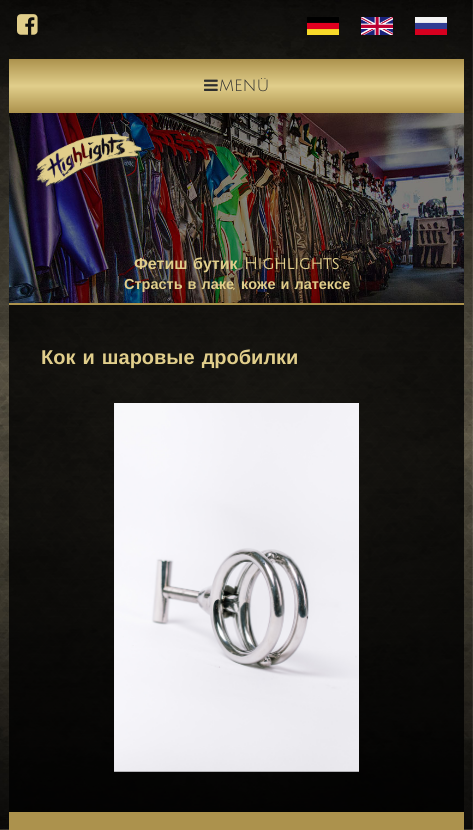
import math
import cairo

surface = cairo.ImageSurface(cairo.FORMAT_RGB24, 473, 830)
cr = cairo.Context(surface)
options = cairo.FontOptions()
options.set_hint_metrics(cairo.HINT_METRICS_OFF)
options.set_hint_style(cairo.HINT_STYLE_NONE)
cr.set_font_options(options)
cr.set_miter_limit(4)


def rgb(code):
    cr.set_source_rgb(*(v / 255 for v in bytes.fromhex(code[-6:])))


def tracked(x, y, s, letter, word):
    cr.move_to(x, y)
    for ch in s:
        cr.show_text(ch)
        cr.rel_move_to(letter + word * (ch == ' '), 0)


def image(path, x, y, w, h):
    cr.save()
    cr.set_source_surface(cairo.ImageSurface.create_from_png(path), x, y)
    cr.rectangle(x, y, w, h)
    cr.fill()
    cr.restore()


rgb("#ffffff")
cr.paint()
image("img/1.png", 0, 0, 473, 830)
image("img/2.png", 17, 14, 21, 21)
image("img/3.png", 307, 17, 32, 18)
image("img/4.png", 361, 17, 32, 18)
image("img/5.png", 415, 17, 32, 18)
gradient = cairo.LinearGradient(237, 59, 237, 113)
gradient.add_color_stop_rgba(0, 0.675, 0.573, 0.302, 1)
gradient.add_color_stop_rgba(0.5, 0.882, 0.808, 0.545, 1)
gradient.add_color_stop_rgba(1, 0.675, 0.573, 0.302, 1)
cr.set_source(gradient)
cr.rectangle(9, 59, 455, 54)
cr.fill()
image("img/6.png", 204, 79, 14, 12)
image("img/7.png", 9, 113, 455, 190)
rgb("#ac924d")
cr.rectangle(9, 303, 455, 2)
cr.fill()
image("img/8.png", 35, 133, 107, 54)
cr.set_source_rgba(0, 0, 0, 0.8)
cr.rectangle(9, 305, 455, 507)
cr.fill()
image("img/9.png", 114, 403, 245, 369)
rgb("#ac924d")
cr.rectangle(9, 812, 455, 18)
cr.fill()
cr.select_font_face("Julius Sans One")
cr.set_font_size(16)
rgb("#2e2e2e")
cr.move_to(219, 91)
cr.show_text("MENÜ")
cr.select_font_face("Liberation Sans", cairo.FONT_SLANT_NORMAL, cairo.FONT_WEIGHT_BOLD)
rgb("#e1ce8b")
tracked(134, 269, "Фетиш бутик", 0, 1)
cr.select_font_face("Julius Sans One", cairo.FONT_SLANT_NORMAL, cairo.FONT_WEIGHT_BOLD)
cr.move_to(244, 269)
cr.show_text("Highlights")
cr.select_font_face("Liberation Sans", cairo.FONT_SLANT_NORMAL, cairo.FONT_WEIGHT_BOLD)
cr.set_font_size(14.5)
tracked(124, 289, "Страсть в лаке", 0, 1)
cr.select_font_face("Julius Sans One", cairo.FONT_SLANT_NORMAL, cairo.FONT_WEIGHT_BOLD)
cr.move_to(233, 289)
cr.show_text(",")
cr.select_font_face("Liberation Sans", cairo.FONT_SLANT_NORMAL, cairo.FONT_WEIGHT_BOLD)
tracked(241, 289, "коже и латексе", 0, 1)
cr.set_font_size(20)
tracked(41, 364, "Кок и шаровые дробилки", 0, 1.5)
surface.write_to_png("page.png")
